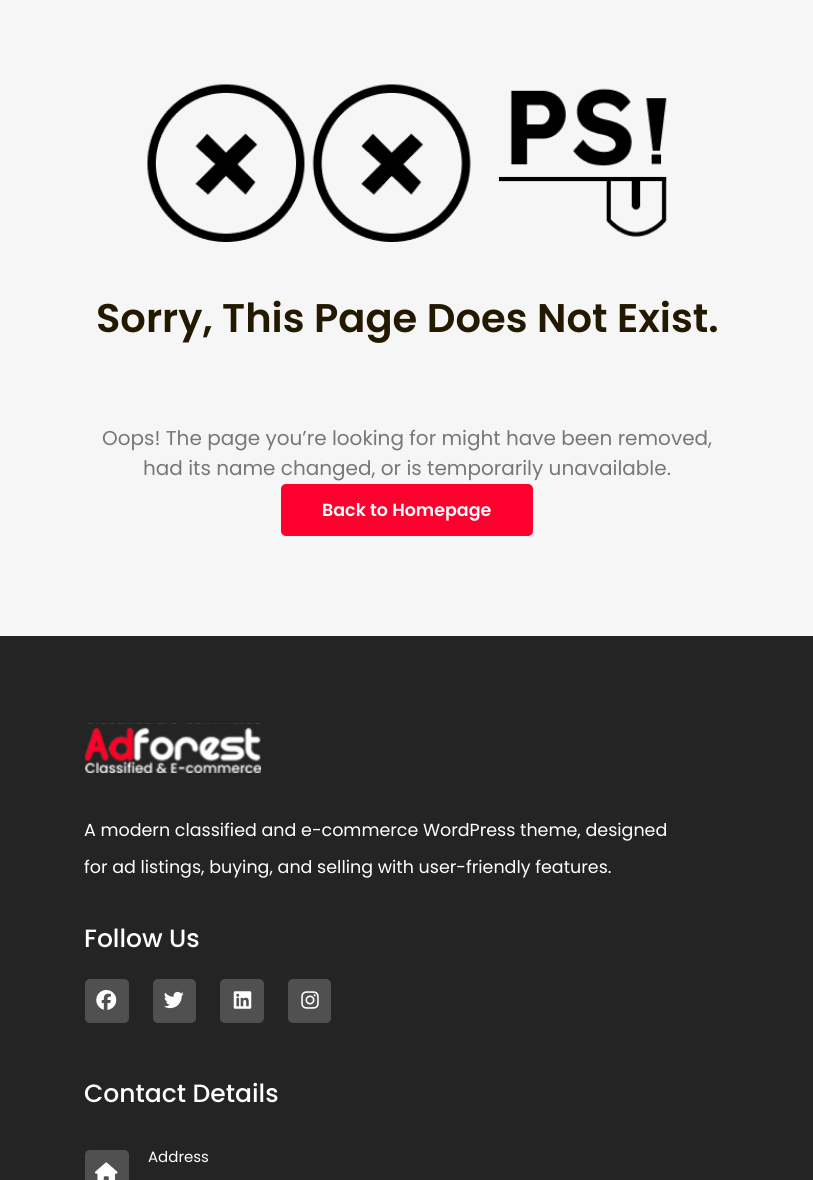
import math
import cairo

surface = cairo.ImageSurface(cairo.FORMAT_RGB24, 813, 1180)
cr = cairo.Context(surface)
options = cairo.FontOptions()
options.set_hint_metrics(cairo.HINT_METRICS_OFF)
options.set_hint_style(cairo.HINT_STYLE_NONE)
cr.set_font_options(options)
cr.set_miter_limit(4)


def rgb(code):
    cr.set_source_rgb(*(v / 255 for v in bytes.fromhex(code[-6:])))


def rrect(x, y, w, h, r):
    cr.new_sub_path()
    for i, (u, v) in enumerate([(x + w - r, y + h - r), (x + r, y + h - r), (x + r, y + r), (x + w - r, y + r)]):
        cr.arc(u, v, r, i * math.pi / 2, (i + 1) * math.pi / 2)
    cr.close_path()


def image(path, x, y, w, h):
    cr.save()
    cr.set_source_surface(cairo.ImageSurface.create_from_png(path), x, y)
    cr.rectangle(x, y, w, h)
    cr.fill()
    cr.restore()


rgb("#f6f6f6")
cr.paint()
image("img/1.png", 147, 84, 520, 158)
rgb("#ff002e")
rrect(281, 484, 252, 52, 5)
cr.fill()
rgb("#242424")
cr.rectangle(0, 636, 813, 544)
cr.fill()
image("img/2.png", 85, 723, 176, 50)
rgb("#505050")
rrect(85, 979, 44, 44, 5)
cr.fill()
image("img/3.png", 96, 990, 21, 20)
rrect(153, 979, 43, 44, 5)
cr.fill()
image("img/4.png", 163, 991, 21, 18)
rrect(220, 979, 44, 44, 5)
cr.fill()
image("img/5.png", 233, 991, 19, 18)
rrect(288, 979, 43, 44, 5)
cr.fill()
image("img/6.png", 301, 991, 18, 18)
rrect(85, 1150, 44, 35, 5)
cr.fill()
image("img/7.png", 95, 1162, 23, 18)
cr.select_font_face("Poppins SemiBold")
cr.set_font_size(40)
rgb("#231900")
cr.move_to(96, 332)
cr.show_text("Sorry, This Page Does Not Exist.")
cr.select_font_face("Poppins")
cr.set_font_size(20)
rgb("#777777")
cr.move_to(102, 445)
cr.show_text("Oops! The page you’re looking for might have been removed,")
cr.move_to(143, 475)
cr.show_text("had its name changed, or is temporarily unavailable.")
cr.select_font_face("Poppins SemiBold")
cr.set_font_size(17.5)
rgb("#ffffff")
cr.move_to(322, 516)
cr.show_text("Back to Homepage")
cr.select_font_face("Poppins")
cr.move_to(84, 836)
cr.show_text("A modern classified and e-commerce WordPress theme, designed")
cr.move_to(84, 873)
cr.show_text("for ad listings, buying, and selling with user-friendly features.")
cr.select_font_face("Poppins Medium")
cr.set_font_size(25)
cr.move_to(84, 947)
cr.show_text("Follow Us")
cr.move_to(84, 1102)
cr.show_text("Contact Details")
cr.select_font_face("Poppins")
cr.set_font_size(15)
cr.move_to(148, 1162)
cr.show_text("Address")
surface.write_to_png("page.png")
